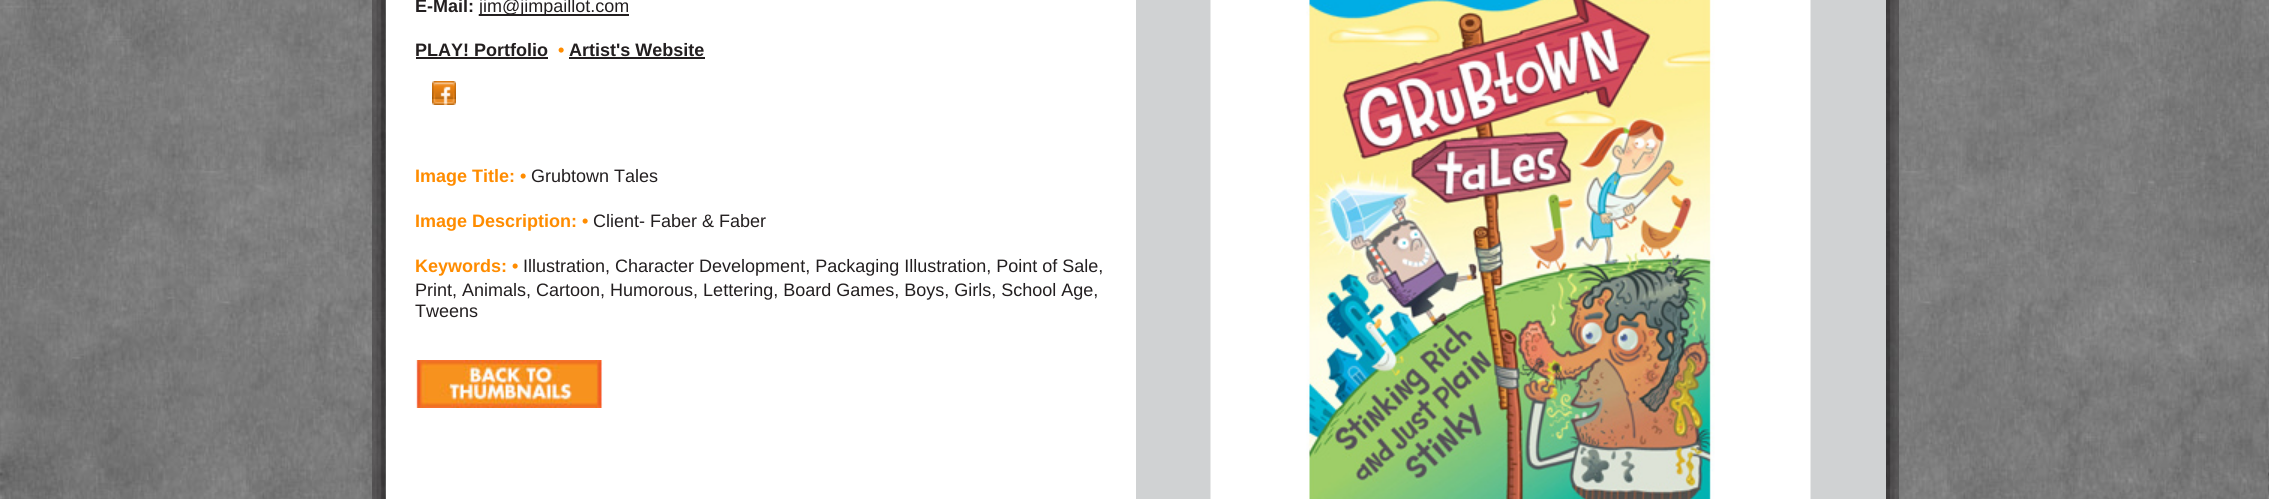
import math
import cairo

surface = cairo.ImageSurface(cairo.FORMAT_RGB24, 2269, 499)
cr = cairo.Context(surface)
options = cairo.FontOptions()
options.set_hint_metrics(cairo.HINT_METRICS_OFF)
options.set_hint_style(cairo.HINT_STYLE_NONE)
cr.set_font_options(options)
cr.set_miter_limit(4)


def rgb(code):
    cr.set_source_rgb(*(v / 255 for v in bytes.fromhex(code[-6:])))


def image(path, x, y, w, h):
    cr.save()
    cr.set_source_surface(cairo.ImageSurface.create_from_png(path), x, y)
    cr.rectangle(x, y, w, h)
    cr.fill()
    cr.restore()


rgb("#ffffff")
cr.paint()
image("img/1.png", 0, 0, 2269, 499)
image("img/2.png", 372, 0, 14, 499)
image("img/3.png", 1886, 0, 13, 499)
for x, y, w, h, color in [
    (386, 0, 750, 499, "#ffffff"),
    (479, 14, 150, 2, "#231f20"),
    (416, 57, 132, 2, "#231f20"),
    (569, 57, 136, 2, "#231f20"),
]:
    rgb(color)
    cr.rectangle(x, y, w, h)
    cr.fill()
image("img/4.png", 432, 81, 24, 24)
image("img/5.png", 415, 360, 188, 48)
rgb("#d0d2d3")
cr.rectangle(1136, 0, 750, 499)
cr.fill()
image("img/6.png", 1210, 0, 601, 499)
cr.select_font_face("Liberation Sans", cairo.FONT_SLANT_NORMAL, cairo.FONT_WEIGHT_BOLD)
cr.set_font_size(18)
rgb("#231f20")
cr.move_to(415, 12)
cr.show_text("E-Mail:")
cr.select_font_face("Liberation Sans")
cr.move_to(479, 12)
cr.show_text("jim@jimpaillot.com")
cr.select_font_face("Liberation Sans", cairo.FONT_SLANT_NORMAL, cairo.FONT_WEIGHT_BOLD)
cr.move_to(415, 56)
cr.show_text("PLAY! Portfolio")
rgb("#ff8c00")
cr.move_to(558, 56)
cr.show_text("•")
rgb("#231f20")
cr.move_to(569, 56)
cr.show_text("Artist's Website")
rgb("#ff8c00")
cr.move_to(415, 182)
cr.show_text("Image Title: •")
cr.select_font_face("Liberation Sans")
rgb("#231f20")
cr.move_to(531, 182)
cr.show_text("Grubtown Tales")
cr.select_font_face("Liberation Sans", cairo.FONT_SLANT_NORMAL, cairo.FONT_WEIGHT_BOLD)
rgb("#ff8c00")
cr.move_to(415, 227)
cr.show_text("Image Description: •")
cr.select_font_face("Liberation Sans")
rgb("#231f20")
cr.move_to(593, 227)
cr.show_text("Client- Faber & Faber")
cr.select_font_face("Liberation Sans", cairo.FONT_SLANT_NORMAL, cairo.FONT_WEIGHT_BOLD)
rgb("#ff8c00")
cr.move_to(415, 272)
cr.show_text("Keywords: •")
cr.select_font_face("Liberation Sans")
rgb("#231f20")
for x, y, s in [
    (523, 272, "Illustration, Character Development, Packaging Illustration, Point of Sale,"),
    (415, 296, "Print, Animals, Cartoon, Humorous, Lettering, Board Games, Boys, Girls, School Age,"),
    (415, 317, "Tweens"),
]:
    cr.move_to(x, y)
    cr.show_text(s)
surface.write_to_png("page.png")
